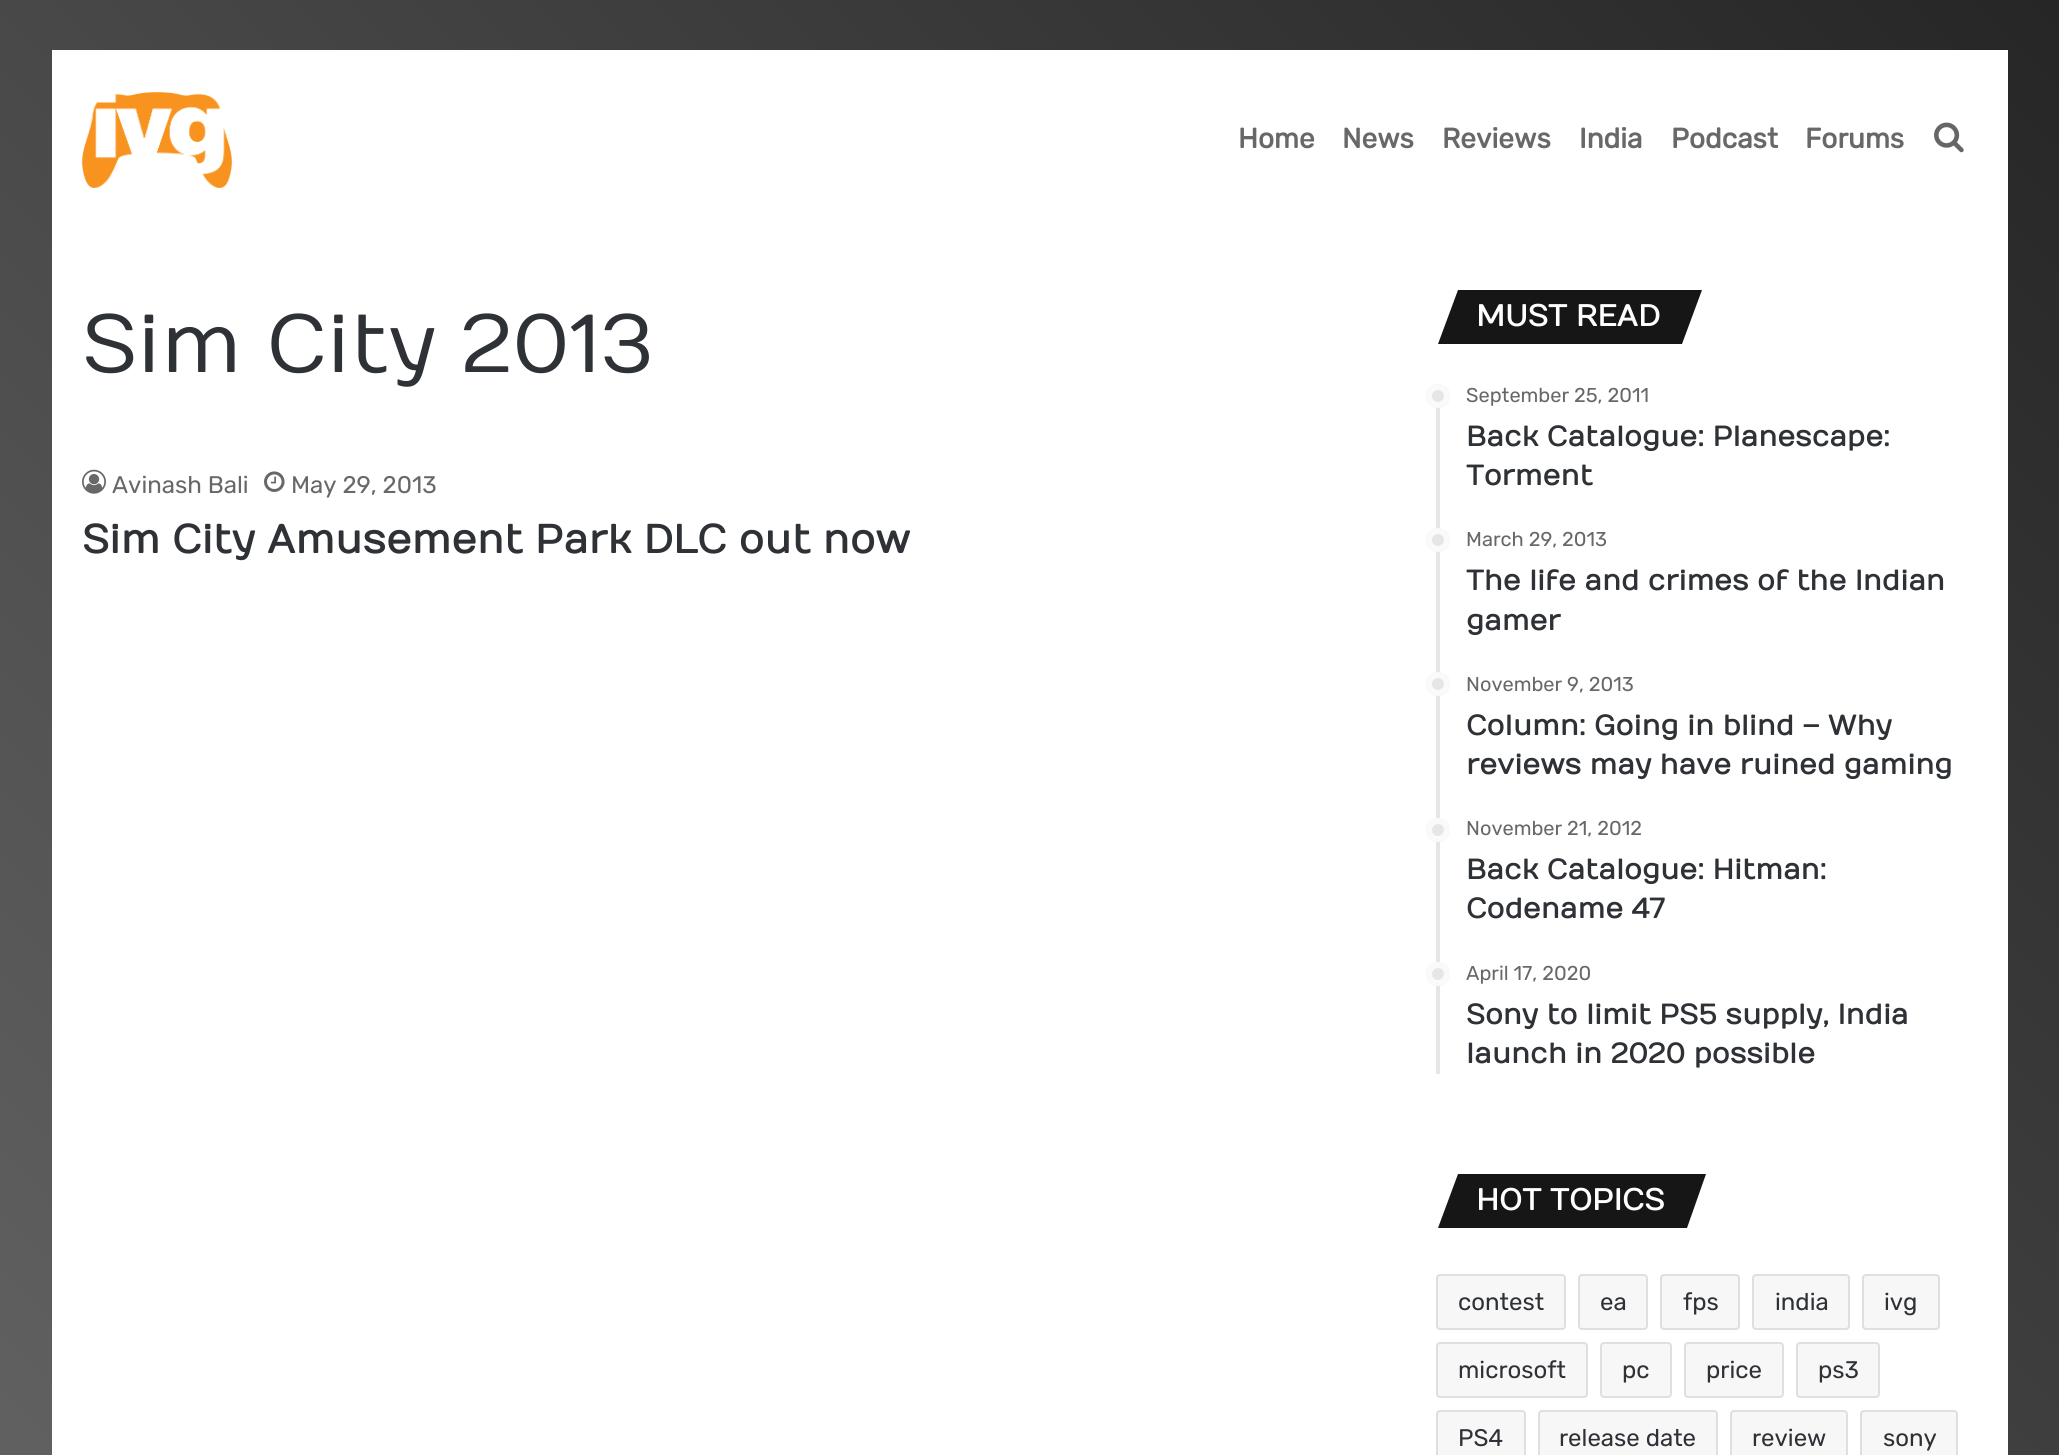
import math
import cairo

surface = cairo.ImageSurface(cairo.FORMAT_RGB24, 2059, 1455)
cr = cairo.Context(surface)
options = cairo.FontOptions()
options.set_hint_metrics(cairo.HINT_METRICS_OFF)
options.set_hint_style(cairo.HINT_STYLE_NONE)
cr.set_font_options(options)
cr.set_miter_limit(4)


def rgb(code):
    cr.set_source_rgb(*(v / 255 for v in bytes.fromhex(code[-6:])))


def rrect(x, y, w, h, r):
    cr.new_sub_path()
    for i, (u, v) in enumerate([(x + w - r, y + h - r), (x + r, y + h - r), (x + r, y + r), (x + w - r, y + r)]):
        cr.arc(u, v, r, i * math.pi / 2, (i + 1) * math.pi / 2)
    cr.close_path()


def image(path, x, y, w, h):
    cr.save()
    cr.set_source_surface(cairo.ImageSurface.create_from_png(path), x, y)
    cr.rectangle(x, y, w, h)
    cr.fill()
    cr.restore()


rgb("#ffffff")
cr.paint()
gradient = cairo.LinearGradient(40, 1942, 2021, -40)
gradient.add_color_stop_rgba(0, 0.408, 0.408, 0.408, 1)
gradient.add_color_stop_rgba(1, 0.149, 0.149, 0.149, 1)
cr.set_source(gradient)
cr.rectangle(0, 0, 2059, 1455)
cr.fill()
rgb("#ffffff")
cr.rectangle(52, 50, 1956, 1405)
cr.fill()
image("img/1.png", 82, 92, 150, 96)
image("img/2.png", 1934, 122, 30, 31)
image("img/3.png", 82, 469, 24, 25)
image("img/4.png", 264, 471, 21, 21)
rgb("#161616")
cr.new_path()
cr.move_to(1458, 290)
cr.line_to(1702, 290)
cr.line_to(1682, 344)
cr.line_to(1438, 344)
cr.close_path()
cr.fill()
rgb("#e6e6e6")
cr.rectangle(1436, 384, 4, 690)
cr.fill()
cr.arc(1438, 396, 12, 0, 2 * math.pi)
cr.fill()
cr.arc(1438, 396, 9, 0, 2 * math.pi)
cr.set_source_rgba(1, 1, 1, 0.8)
cr.set_line_width(6)
cr.stroke()
rgb("#e6e6e6")
cr.arc(1438, 540, 12, 0, 2 * math.pi)
cr.fill()
cr.arc(1438, 540, 9, 0, 2 * math.pi)
cr.set_source_rgba(1, 1, 1, 0.8)
cr.stroke()
rgb("#e6e6e6")
cr.arc(1438, 684, 12, 0, 2 * math.pi)
cr.fill()
cr.arc(1438, 684, 9, 0, 2 * math.pi)
cr.set_source_rgba(1, 1, 1, 0.8)
cr.stroke()
rgb("#e6e6e6")
cr.arc(1438, 830, 12, 0, 2 * math.pi)
cr.fill()
cr.arc(1438, 830, 9, 0, 2 * math.pi)
cr.set_source_rgba(1, 1, 1, 0.8)
cr.stroke()
rgb("#e6e6e6")
cr.arc(1438, 974, 12, 0, 2 * math.pi)
cr.fill()
cr.arc(1438, 974, 9, 0, 2 * math.pi)
cr.set_source_rgba(1, 1, 1, 0.8)
cr.stroke()
rgb("#161616")
cr.new_path()
cr.move_to(1458, 1174)
cr.line_to(1706, 1174)
cr.line_to(1687, 1228)
cr.line_to(1438, 1228)
cr.close_path()
cr.fill()
rgb("#f7f7f7")
rrect(1436, 1274, 130, 56, 4)
cr.fill()
rrect(1437, 1275, 128, 54, 3)
cr.set_source_rgba(0.012, 0.012, 0.012, 0.1)
cr.set_line_width(2)
cr.stroke()
rgb("#f7f7f7")
rrect(1578, 1274, 70, 56, 4)
cr.fill()
rrect(1579, 1275, 68, 54, 3)
cr.set_source_rgba(0.012, 0.012, 0.012, 0.1)
cr.stroke()
rgb("#f7f7f7")
rrect(1660, 1274, 80, 56, 4)
cr.fill()
rrect(1661, 1275, 78, 54, 3)
cr.set_source_rgba(0.012, 0.012, 0.012, 0.1)
cr.stroke()
rgb("#f7f7f7")
rrect(1752, 1274, 98, 56, 4)
cr.fill()
rrect(1753, 1275, 96, 54, 3)
cr.set_source_rgba(0.012, 0.012, 0.012, 0.1)
cr.stroke()
rgb("#f7f7f7")
rrect(1862, 1274, 78, 56, 4)
cr.fill()
rrect(1863, 1275, 76, 54, 3)
cr.set_source_rgba(0.012, 0.012, 0.012, 0.1)
cr.stroke()
rgb("#f7f7f7")
rrect(1436, 1342, 152, 56, 4)
cr.fill()
rrect(1437, 1343, 150, 54, 3)
cr.set_source_rgba(0.012, 0.012, 0.012, 0.1)
cr.stroke()
rgb("#f7f7f7")
rrect(1600, 1342, 72, 56, 4)
cr.fill()
rrect(1601, 1343, 70, 54, 3)
cr.set_source_rgba(0.012, 0.012, 0.012, 0.1)
cr.stroke()
rgb("#f7f7f7")
rrect(1684, 1342, 100, 56, 4)
cr.fill()
rrect(1685, 1343, 98, 54, 3)
cr.set_source_rgba(0.012, 0.012, 0.012, 0.1)
cr.stroke()
rgb("#f7f7f7")
rrect(1796, 1342, 84, 56, 4)
cr.fill()
rrect(1797, 1343, 82, 54, 3)
cr.set_source_rgba(0.012, 0.012, 0.012, 0.1)
cr.stroke()
rgb("#f7f7f7")
rrect(1436, 1410, 90, 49, 4)
cr.fill()
rrect(1437, 1411, 88, 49, 3)
cr.set_source_rgba(0.012, 0.012, 0.012, 0.1)
cr.stroke()
rgb("#f7f7f7")
rrect(1538, 1410, 180, 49, 4)
cr.fill()
rrect(1539, 1411, 178, 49, 3)
cr.set_source_rgba(0.012, 0.012, 0.012, 0.1)
cr.stroke()
rgb("#f7f7f7")
rrect(1730, 1410, 118, 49, 4)
cr.fill()
rrect(1731, 1411, 116, 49, 3)
cr.set_source_rgba(0.012, 0.012, 0.012, 0.1)
cr.stroke()
rgb("#f7f7f7")
rrect(1860, 1410, 98, 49, 4)
cr.fill()
rrect(1861, 1411, 96, 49, 3)
cr.set_source_rgba(0.012, 0.012, 0.012, 0.1)
cr.stroke()
cr.select_font_face("Rubik", cairo.FONT_SLANT_NORMAL, cairo.FONT_WEIGHT_BOLD)
cr.set_font_size(28)
rgb("#686868")
for x, y, s in [
    (1238, 148, "Home"),
    (1342, 148, "News"),
    (1442, 148, "Reviews"),
    (1579, 148, "India"),
    (1671, 148, "Podcast"),
    (1805, 148, "Forums"),
]:
    cr.move_to(x, y)
    cr.show_text(s)
cr.select_font_face("Numans")
cr.set_font_size(82)
rgb("#2e3136")
cr.move_to(82, 372)
cr.show_text("Sim City 2013")
cr.select_font_face("Rubik Light")
cr.set_font_size(24)
rgb("#686868")
cr.move_to(112, 493)
cr.show_text("Avinash Bali")
cr.move_to(291, 493)
cr.show_text("May 29, 2013")
cr.select_font_face("Numans", cairo.FONT_SLANT_NORMAL, cairo.FONT_WEIGHT_BOLD)
cr.set_font_size(40)
rgb("#2e3136")
cr.move_to(82, 553)
cr.show_text("Sim City Amusement Park DLC out now")
cr.set_font_size(30)
rgb("#ffffff")
cr.move_to(1476, 326)
cr.show_text("MUST READ")
cr.select_font_face("Rubik Light")
cr.set_font_size(20)
rgb("#686868")
cr.move_to(1466, 402)
cr.show_text("September 25, 2011")
cr.select_font_face("Numans", cairo.FONT_SLANT_NORMAL, cairo.FONT_WEIGHT_BOLD)
cr.set_font_size(28)
rgb("#2e3136")
cr.move_to(1466, 446)
cr.show_text("Back Catalogue: Planescape:")
cr.move_to(1466, 485)
cr.show_text("Torment")
cr.select_font_face("Rubik Light")
cr.set_font_size(20)
rgb("#686868")
cr.move_to(1466, 546)
cr.show_text("March 29, 2013")
cr.select_font_face("Numans", cairo.FONT_SLANT_NORMAL, cairo.FONT_WEIGHT_BOLD)
cr.set_font_size(28)
rgb("#2e3136")
cr.move_to(1466, 590)
cr.show_text("The life and crimes of the Indian")
cr.move_to(1466, 630)
cr.show_text("gamer")
cr.select_font_face("Rubik Light")
cr.set_font_size(20)
rgb("#686868")
cr.move_to(1466, 691)
cr.show_text("November 9, 2013")
cr.select_font_face("Numans", cairo.FONT_SLANT_NORMAL, cairo.FONT_WEIGHT_BOLD)
cr.set_font_size(28)
rgb("#2e3136")
cr.move_to(1466, 735)
cr.show_text("Column: Going in blind – Why")
cr.move_to(1466, 774)
cr.show_text("reviews may have ruined gaming")
cr.select_font_face("Rubik Light")
cr.set_font_size(20)
rgb("#686868")
cr.move_to(1466, 835)
cr.show_text("November 21, 2012")
cr.select_font_face("Numans", cairo.FONT_SLANT_NORMAL, cairo.FONT_WEIGHT_BOLD)
cr.set_font_size(28)
rgb("#2e3136")
cr.move_to(1466, 879)
cr.show_text("Back Catalogue: Hitman:")
cr.move_to(1466, 918)
cr.show_text("Codename 47")
cr.select_font_face("Rubik Light")
cr.set_font_size(20)
rgb("#686868")
cr.move_to(1466, 980)
cr.show_text("April 17, 2020")
cr.select_font_face("Numans", cairo.FONT_SLANT_NORMAL, cairo.FONT_WEIGHT_BOLD)
cr.set_font_size(28)
rgb("#2e3136")
cr.move_to(1466, 1024)
cr.show_text("Sony to limit PS5 supply, India")
cr.move_to(1466, 1063)
cr.show_text("launch in 2020 possible")
cr.set_font_size(30)
rgb("#ffffff")
cr.move_to(1476, 1210)
cr.show_text("HOT TOPICS")
cr.select_font_face("Rubik Light")
cr.set_font_size(24)
rgb("#2e3136")
for x, y, s in [
    (1458, 1310, "contest"),
    (1600, 1310, "ea"),
    (1683, 1310, "fps"),
    (1775, 1310, "india"),
    (1884, 1310, "ivg"),
    (1458, 1378, "microsoft"),
    (1622, 1378, "pc"),
    (1706, 1378, "price"),
    (1818, 1378, "ps3"),
    (1458, 1446, "PS4"),
    (1559, 1446, "release date"),
    (1752, 1446, "review"),
    (1883, 1446, "sony"),
]:
    cr.move_to(x, y)
    cr.show_text(s)
surface.write_to_png("page.png")
